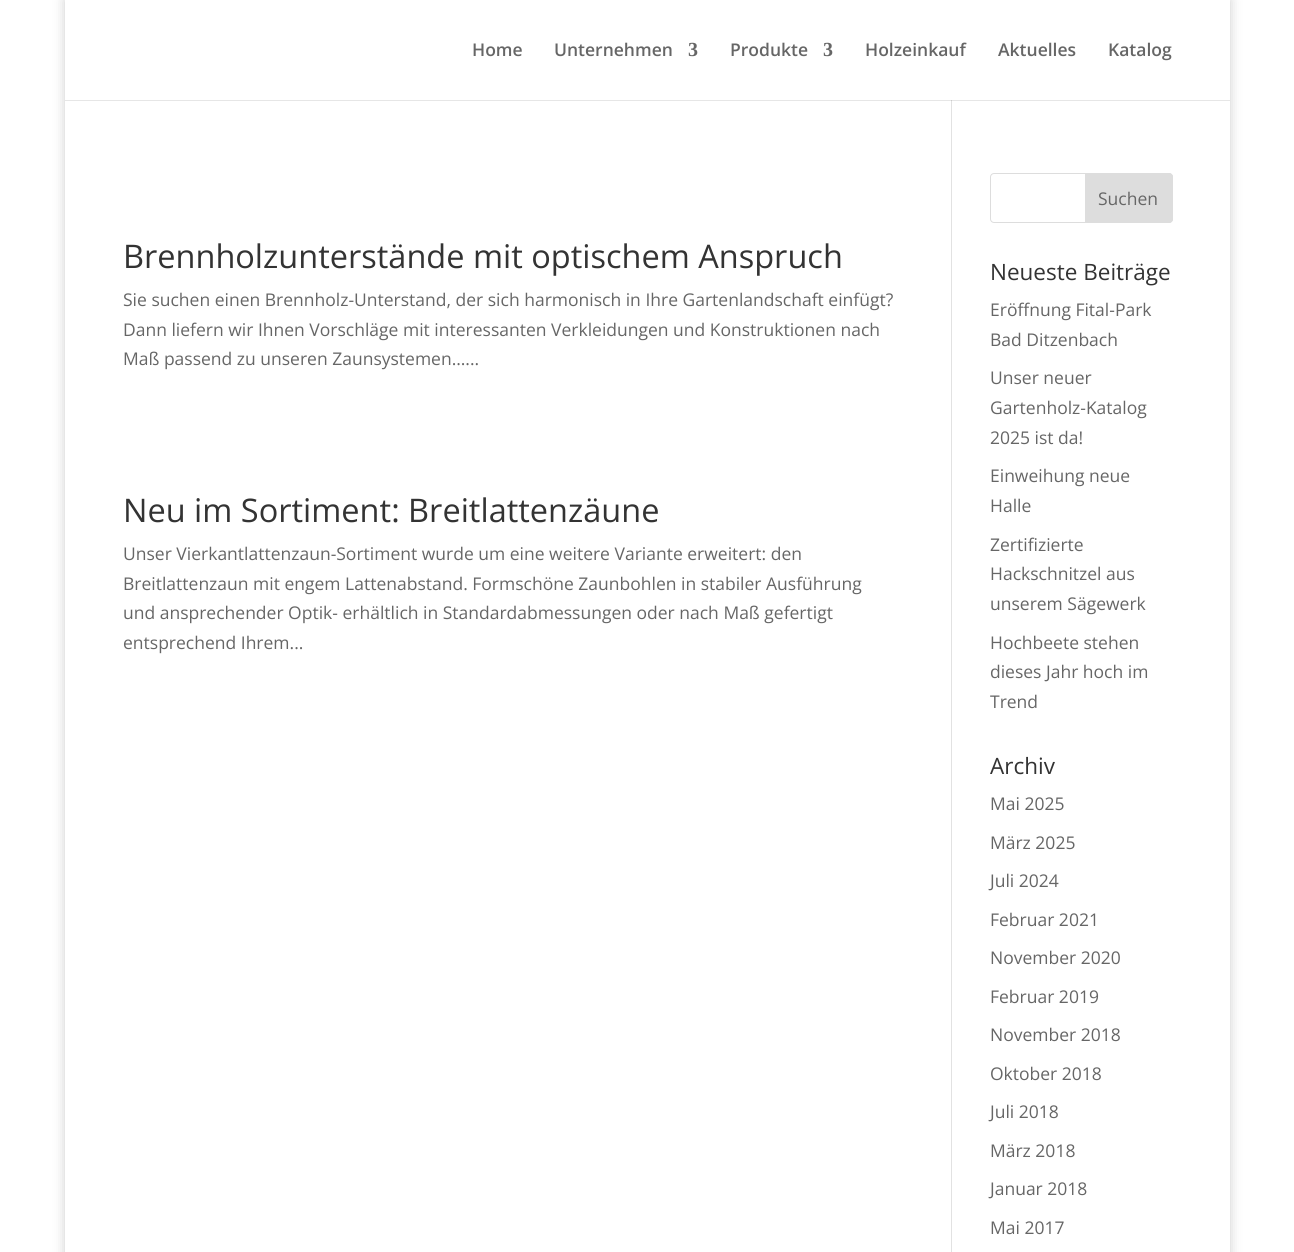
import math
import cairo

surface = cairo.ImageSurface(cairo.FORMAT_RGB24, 1294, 1252)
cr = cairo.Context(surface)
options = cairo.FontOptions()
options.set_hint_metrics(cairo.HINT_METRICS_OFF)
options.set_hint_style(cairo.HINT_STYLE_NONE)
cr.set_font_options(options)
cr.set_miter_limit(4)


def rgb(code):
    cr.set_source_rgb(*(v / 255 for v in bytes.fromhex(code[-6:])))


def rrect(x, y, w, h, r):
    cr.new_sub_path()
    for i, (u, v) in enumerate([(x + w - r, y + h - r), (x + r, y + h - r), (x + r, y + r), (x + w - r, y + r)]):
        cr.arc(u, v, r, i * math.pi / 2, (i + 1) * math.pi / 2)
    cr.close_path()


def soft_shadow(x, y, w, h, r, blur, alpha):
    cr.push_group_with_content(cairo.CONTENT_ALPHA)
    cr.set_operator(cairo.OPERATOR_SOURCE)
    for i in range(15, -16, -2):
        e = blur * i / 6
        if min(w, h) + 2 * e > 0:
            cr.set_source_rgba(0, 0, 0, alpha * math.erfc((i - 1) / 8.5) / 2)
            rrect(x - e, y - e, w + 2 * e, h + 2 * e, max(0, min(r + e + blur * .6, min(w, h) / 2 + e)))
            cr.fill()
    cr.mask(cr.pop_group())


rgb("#ffffff")
cr.paint()
rgb("#e6e6e6")
cr.rectangle(65, 100, 1165, 1)
cr.fill()
cr.save()
cr.set_fill_rule(cairo.FILL_RULE_EVEN_ODD)
cr.new_path()
cr.move_to(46, 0)
cr.line_to(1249, 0)
cr.line_to(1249, 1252)
cr.line_to(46, 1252)
cr.close_path()
cr.move_to(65, 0)
cr.line_to(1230, 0)
cr.line_to(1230, 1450)
cr.line_to(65, 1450)
cr.close_path()
cr.clip()
rgb("#000000")
soft_shadow(65, 0, 1165, 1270, 0, 6, 0.2)
cr.restore()
rgb("#e2e2e2")
cr.rectangle(951, 100, 1, 1152)
cr.fill()
rgb("#cbcbcb")
cr.rectangle(951, 100, 1, 1)
cr.fill()
rrect(990.5, 173.5, 182, 49, 3.5)
rgb("#dddddd")
cr.set_line_width(1)
cr.stroke()
cr.new_path()
cr.move_to(1085.5, 173.5)
cr.line_to(1169, 173.5)
cr.curve_to(1171, 173.5, 1172.5, 175, 1172.5, 177)
cr.line_to(1172.5, 219)
cr.curve_to(1172.5, 221, 1171, 222.5, 1169, 222.5)
cr.line_to(1085.5, 222.5)
cr.close_path()
cr.fill_preserve()
cr.stroke()
cr.select_font_face("Open Sans SemiBold")
cr.set_font_size(17.5)
rgb("#666666")
cr.move_to(472, 56)
cr.show_text("Home")
cr.move_to(554, 56)
cr.show_text("Unternehmen")
cr.select_font_face("Liberation Serif", cairo.FONT_SLANT_NORMAL, cairo.FONT_WEIGHT_BOLD)
cr.set_font_size(20)
cr.move_to(688, 56)
cr.show_text("3")
cr.select_font_face("Open Sans SemiBold")
cr.set_font_size(17.5)
cr.move_to(730, 56)
cr.show_text("Produkte")
cr.select_font_face("Liberation Serif", cairo.FONT_SLANT_NORMAL, cairo.FONT_WEIGHT_BOLD)
cr.set_font_size(20)
cr.move_to(823, 56)
cr.show_text("3")
cr.select_font_face("Open Sans SemiBold")
cr.set_font_size(17.5)
for x, y, s in [
    (865, 56, "Holzeinkauf"),
    (998, 56, "Aktuelles"),
    (1108, 56, "Katalog"),
]:
    cr.move_to(x, y)
    cr.show_text(s)
cr.select_font_face("Open Sans")
cr.set_font_size(32.5)
rgb("#333333")
cr.move_to(123, 268)
cr.show_text("Brennholzunterstände mit optischem Anspruch")
cr.set_font_size(17.5)
rgb("#666666")
for x, y, s in [
    (123, 306, "Sie suchen einen Brennholz-Unterstand, der sich harmonisch in Ihre Gartenlandschaft einfügt?"),
    (123, 336, "Dann liefern wir Ihnen Vorschläge mit interessanten Verkleidungen und Konstruktionen nach"),
    (123, 365, "Maß passend zu unseren Zaunsystemen…..."),
]:
    cr.move_to(x, y)
    cr.show_text(s)
cr.set_font_size(32.5)
rgb("#333333")
cr.move_to(123, 522)
cr.show_text("Neu im Sortiment: Breitlattenzäune")
cr.set_font_size(17.5)
rgb("#666666")
for x, y, s in [
    (123, 560, "Unser Vierkantlattenzaun-Sortiment wurde um eine weitere Variante erweitert: den"),
    (123, 590, "Breitlattenzaun mit engem Lattenabstand. Formschöne Zaunbohlen in stabiler Ausführung"),
    (123, 619, "und ansprechender Optik- erhältlich in Standardabmessungen oder nach Maß gefertigt"),
    (123, 649, "entsprechend Ihrem..."),
    (1098, 205, "Suchen"),
]:
    cr.move_to(x, y)
    cr.show_text(s)
cr.set_font_size(22.5)
rgb("#333333")
cr.move_to(990, 280)
cr.show_text("Neueste Beiträge")
cr.set_font_size(17.5)
rgb("#666666")
for x, y, s in [
    (990, 316, "Eröffnung Fital-Park"),
    (990, 346, "Bad Ditzenbach"),
    (990, 384, "Unser neuer"),
    (990, 414, "Gartenholz-Katalog"),
    (990, 444, "2025 ist da!"),
    (990, 482, "Einweihung neue"),
    (990, 512, "Halle"),
    (990, 551, "Zertifizierte"),
    (990, 580, "Hackschnitzel aus"),
    (990, 610, "unserem Sägewerk"),
    (990, 649, "Hochbeete stehen"),
    (990, 678, "dieses Jahr hoch im"),
    (990, 708, "Trend"),
]:
    cr.move_to(x, y)
    cr.show_text(s)
cr.set_font_size(22.5)
rgb("#333333")
cr.move_to(990, 774)
cr.show_text("Archiv")
cr.set_font_size(17.5)
rgb("#666666")
for x, y, s in [
    (990, 810, "Mai 2025"),
    (990, 849, "März 2025"),
    (990, 887, "Juli 2024"),
    (990, 926, "Februar 2021"),
    (990, 964, "November 2020"),
    (990, 1003, "Februar 2019"),
    (990, 1041, "November 2018"),
    (990, 1080, "Oktober 2018"),
    (990, 1118, "Juli 2018"),
    (990, 1157, "März 2018"),
    (990, 1195, "Januar 2018"),
    (990, 1234, "Mai 2017"),
]:
    cr.move_to(x, y)
    cr.show_text(s)
surface.write_to_png("page.png")
